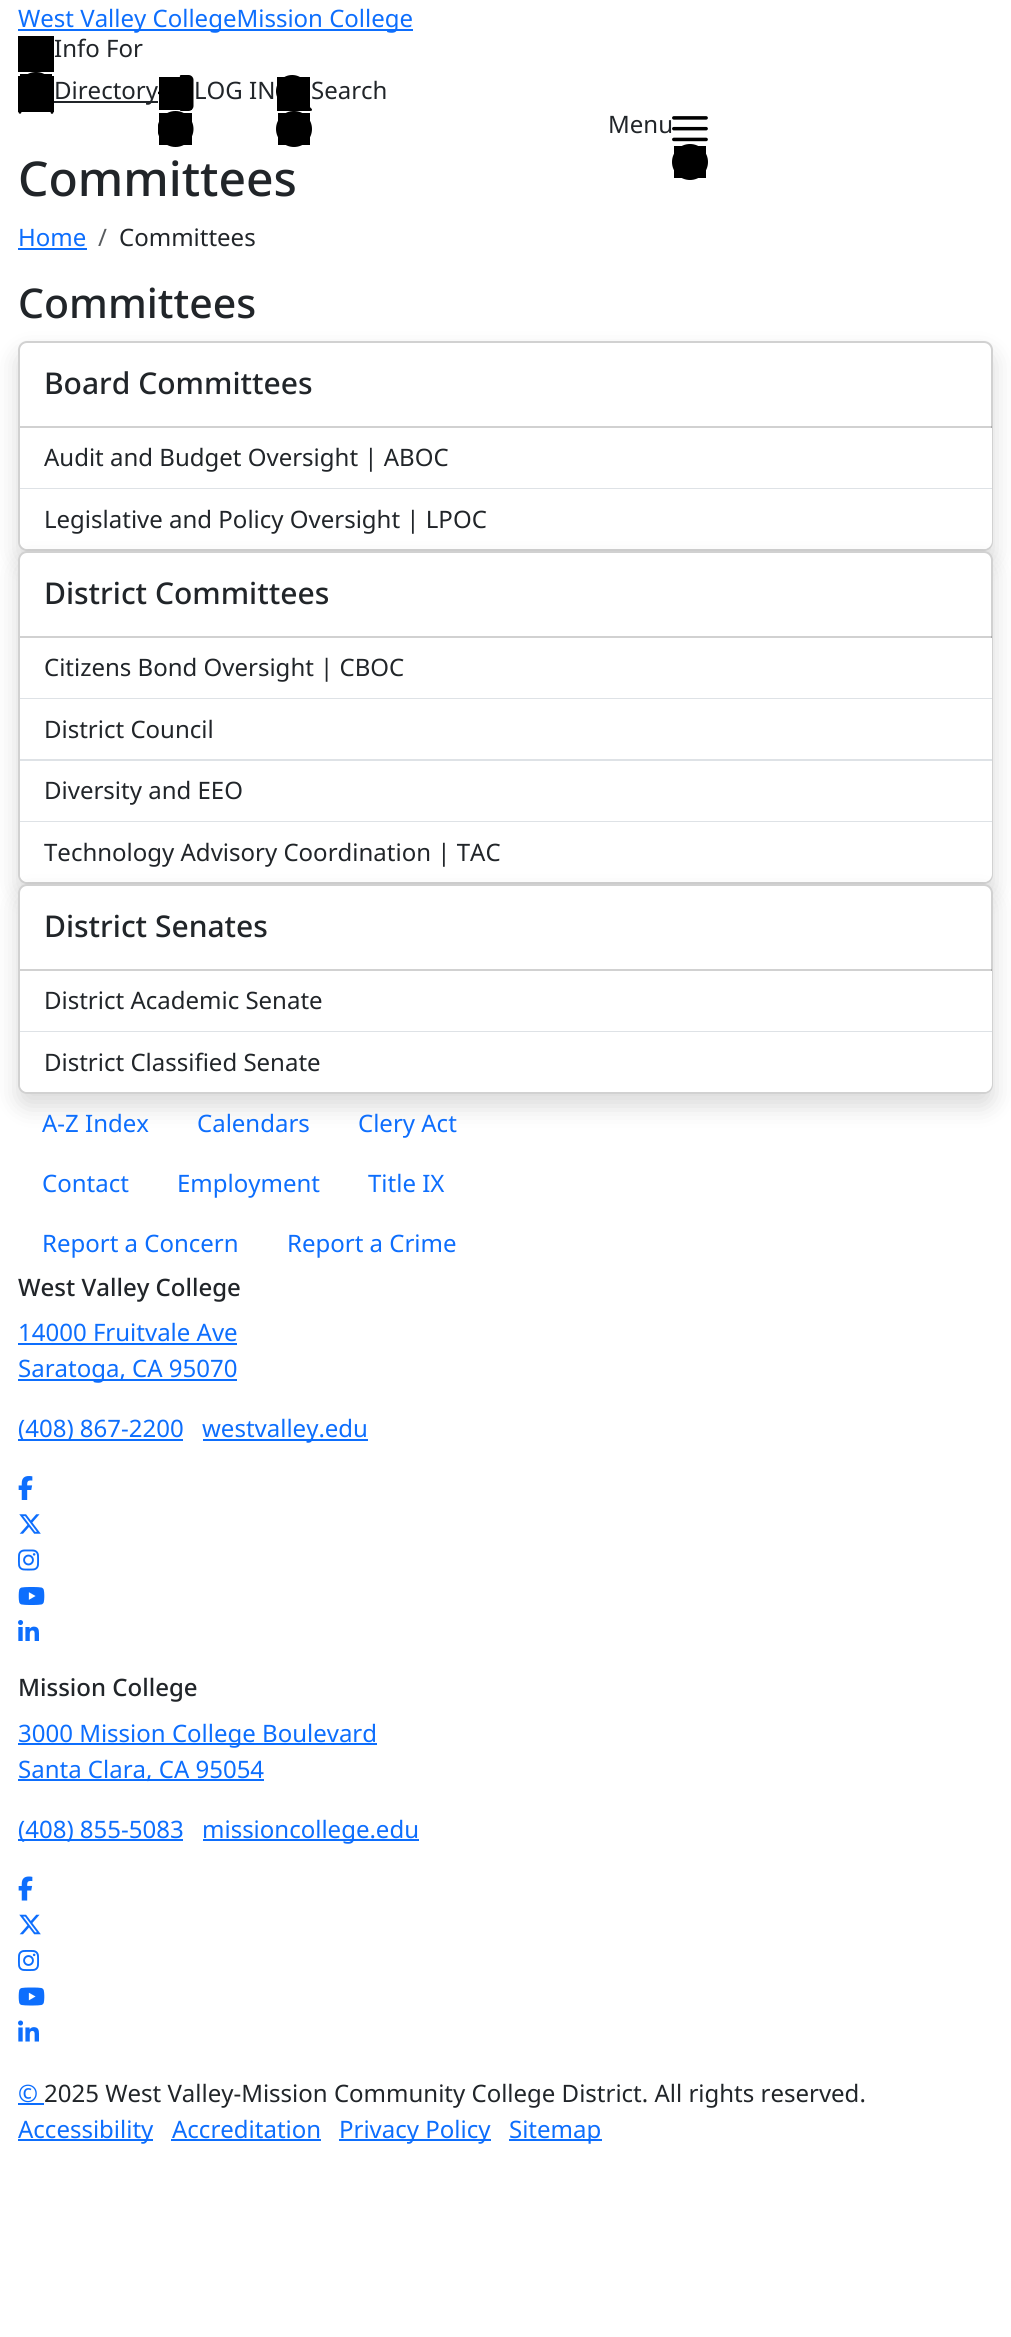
import math
import cairo

surface = cairo.ImageSurface(cairo.FORMAT_RGB24, 1011, 2337)
cr = cairo.Context(surface)
options = cairo.FontOptions()
options.set_hint_metrics(cairo.HINT_METRICS_OFF)
options.set_hint_style(cairo.HINT_STYLE_NONE)
cr.set_font_options(options)
cr.set_miter_limit(4)


def rgb(code):
    cr.set_source_rgb(*(v / 255 for v in bytes.fromhex(code[-6:])))


def rrect(x, y, w, h, r):
    cr.new_sub_path()
    for i, (u, v) in enumerate([(x + w - r, y + h - r), (x + r, y + h - r), (x + r, y + r), (x + w - r, y + r)]):
        cr.arc(u, v, r, i * math.pi / 2, (i + 1) * math.pi / 2)
    cr.close_path()


def soft_shadow(x, y, w, h, r, blur, alpha):
    cr.push_group_with_content(cairo.CONTENT_ALPHA)
    cr.set_operator(cairo.OPERATOR_SOURCE)
    for i in range(15, -16, -2):
        e = blur * i / 6
        if min(w, h) + 2 * e > 0:
            cr.set_source_rgba(0, 0, 0, alpha * math.erfc((i - 1) / 8.5) / 2)
            rrect(x - e, y - e, w + 2 * e, h + 2 * e, max(0, min(r + e + blur * .6, min(w, h) / 2 + e)))
            cr.fill()
    cr.mask(cr.pop_group())


def image(path, x, y, w, h):
    cr.save()
    cr.set_source_surface(cairo.ImageSurface.create_from_png(path), x, y)
    cr.rectangle(x, y, w, h)
    cr.fill()
    cr.restore()


rgb("#ffffff")
cr.paint()
rgb("#0d6efd")
cr.rectangle(18, 29, 395, 2)
cr.fill()
rgb("#000000")
cr.rectangle(18, 36, 36, 36)
cr.fill()
image("img/1.png", 20, 72, 32, 4)
image("img/2.png", 18, 76, 36, 38)
rgb("#212529")
cr.rectangle(54, 101, 104, 2)
cr.fill()
image("img/3.png", 158, 75, 36, 36)
image("img/4.png", 158, 111, 36, 36)
image("img/5.png", 276, 75, 36, 36)
image("img/6.png", 276, 111, 36, 36)
image("img/7.png", 672, 116, 36, 26)
image("img/6.png", 672, 144, 36, 36)
rgb("#0d6efd")
cr.rectangle(18, 248, 69, 2)
cr.fill()
rgb("#000000")
soft_shadow(18, 353, 975, 210, 9, 12, 0.15)
rgb("#ffffff")
rrect(18, 341, 975, 210, 9)
cr.fill()
rrect(19, 342, 973, 208, 8)
cr.set_source_rgba(0, 0, 0, 0.18)
cr.stroke()
cr.rectangle(20, 426, 972, 2)
cr.fill()
rgb("#ffffff")
cr.rectangle(991, 428, 1, 60)
cr.fill()
rgb("#dee2e6")
cr.rectangle(20, 488, 972, 1)
cr.fill()
rgb("#ffffff")
cr.new_path()
cr.move_to(20, 489)
cr.line_to(992, 489)
cr.line_to(992, 541)
cr.curve_to(992, 545.5, 988.5, 549, 984, 549)
cr.line_to(28, 549)
cr.curve_to(23.5, 549, 20, 545.5, 20, 541)
cr.close_path()
cr.fill()
rgb("#000000")
soft_shadow(18, 563, 975, 333, 9, 12, 0.15)
rgb("#ffffff")
rrect(18, 551, 975, 333, 9)
cr.fill()
rrect(19, 552, 973, 331, 8)
cr.set_source_rgba(0, 0, 0, 0.18)
cr.stroke()
cr.rectangle(20, 636, 972, 2)
cr.fill()
rgb("#ffffff")
cr.rectangle(991, 638, 1, 60)
cr.fill()
rgb("#dee2e6")
cr.rectangle(20, 698, 972, 1)
cr.fill()
rgb("#ffffff")
cr.rectangle(991, 699, 1, 60)
cr.fill()
rgb("#dee2e6")
cr.rectangle(20, 759, 972, 2)
cr.fill()
rgb("#ffffff")
cr.rectangle(991, 761, 1, 60)
cr.fill()
rgb("#dee2e6")
cr.rectangle(20, 821, 972, 1)
cr.fill()
rgb("#ffffff")
cr.new_path()
cr.move_to(20, 822)
cr.line_to(992, 822)
cr.line_to(992, 874)
cr.curve_to(992, 878.5, 988.5, 882, 984, 882)
cr.line_to(28, 882)
cr.curve_to(23.5, 882, 20, 878.5, 20, 874)
cr.close_path()
cr.fill()
rgb("#000000")
soft_shadow(18, 896, 975, 210, 9, 12, 0.15)
rgb("#ffffff")
rrect(18, 884, 975, 210, 9)
cr.fill()
rrect(19, 885, 973, 208, 8)
cr.set_source_rgba(0, 0, 0, 0.18)
cr.stroke()
cr.rectangle(20, 969, 972, 2)
cr.fill()
rgb("#ffffff")
cr.rectangle(991, 971, 1, 60)
cr.fill()
rgb("#dee2e6")
cr.rectangle(20, 1031, 972, 1)
cr.fill()
rgb("#ffffff")
cr.new_path()
cr.move_to(20, 1032)
cr.line_to(992, 1032)
cr.line_to(992, 1084)
cr.curve_to(992, 1088.5, 988.5, 1092, 984, 1092)
cr.line_to(28, 1092)
cr.curve_to(23.5, 1092, 20, 1088.5, 20, 1084)
cr.close_path()
cr.fill()
for x, y, w, h, color in [
    (18, 1343, 219, 2, "#0d6efd"),
    (18, 1379, 219, 2, "#0d6efd"),
    (18, 1439, 165, 2, "#0d6efd"),
    (203, 1439, 165, 2, "#0d6efd"),
]:
    rgb(color)
    cr.rectangle(x, y, w, h)
    cr.fill()
image("img/8.png", 18, 1476, 15, 24)
image("img/9.png", 19, 1514, 22, 20)
image("img/10.png", 18, 1549, 21, 22)
image("img/11.png", 18, 1587, 27, 18)
image("img/12.png", 18, 1620, 21, 21)
for x, y, w, h, color in [
    (18, 1743, 359, 2, "#0d6efd"),
    (18, 1779, 246, 2, "#0d6efd"),
    (18, 1839, 165, 2, "#0d6efd"),
    (203, 1839, 216, 2, "#0d6efd"),
]:
    rgb(color)
    cr.rectangle(x, y, w, h)
    cr.fill()
image("img/13.png", 18, 1876, 15, 25)
image("img/14.png", 19, 1914, 22, 21)
image("img/15.png", 18, 1950, 21, 21)
image("img/16.png", 18, 1987, 27, 19)
image("img/17.png", 18, 2020, 21, 22)
for x, y, w, h, color in [
    (18, 2103, 26, 2, "#0d6efd"),
    (18, 2139, 135, 2, "#0d6efd"),
    (171, 2139, 150, 2, "#0d6efd"),
    (339, 2139, 152, 2, "#0d6efd"),
    (509, 2139, 93, 2, "#0d6efd"),
]:
    rgb(color)
    cr.rectangle(x, y, w, h)
    cr.fill()
cr.select_font_face("Noto Sans")
cr.set_font_size(24)
cr.move_to(18, 27)
cr.show_text("West Valley CollegeMission College")
rgb("#212529")
for x, y, s in [
    (54, 57, "Info For"),
    (54, 99, "Directory"),
    (194, 99, "LOG IN"),
    (311, 99, "Search"),
    (608, 133, "Menu"),
]:
    cr.move_to(x, y)
    cr.show_text(s)
cr.select_font_face("Noto Sans Medium")
cr.set_font_size(48)
cr.move_to(18, 196)
cr.show_text("Committees")
cr.select_font_face("Noto Sans")
cr.set_font_size(24)
rgb("#0d6efd")
cr.move_to(18, 246)
cr.show_text("Home")
rgb("#595c5f")
cr.move_to(98, 246)
cr.show_text("/")
rgb("#212529")
cr.move_to(119, 246)
cr.show_text("Committees")
cr.select_font_face("Noto Sans Medium")
cr.set_font_size(41)
cr.move_to(18, 318)
cr.show_text("Committees")
cr.set_font_size(30)
cr.move_to(44, 394)
cr.show_text("Board Committees")
cr.select_font_face("Noto Sans")
cr.set_font_size(24)
cr.move_to(44, 466)
cr.show_text("Audit and Budget Oversight | ABOC")
cr.move_to(44, 528)
cr.show_text("Legislative and Policy Oversight | LPOC")
cr.select_font_face("Noto Sans Medium")
cr.set_font_size(30)
cr.move_to(44, 604)
cr.show_text("District Committees")
cr.select_font_face("Noto Sans")
cr.set_font_size(24)
for x, y, s in [
    (44, 676, "Citizens Bond Oversight | CBOC"),
    (44, 738, "District Council"),
    (44, 799, "Diversity and EEO"),
    (44, 861, "Technology Advisory Coordination | TAC"),
]:
    cr.move_to(x, y)
    cr.show_text(s)
cr.select_font_face("Noto Sans Medium")
cr.set_font_size(30)
cr.move_to(44, 937)
cr.show_text("District Senates")
cr.select_font_face("Noto Sans")
cr.set_font_size(24)
cr.move_to(44, 1009)
cr.show_text("District Academic Senate")
cr.move_to(44, 1071)
cr.show_text("District Classified Senate")
rgb("#0d6efd")
for x, y, s in [
    (42, 1132, "A-Z Index"),
    (197, 1132, "Calendars"),
    (358, 1132, "Clery Act"),
    (42, 1192, "Contact"),
    (177, 1192, "Employment"),
    (368, 1192, "Title IX"),
    (42, 1252, "Report a Concern"),
    (287, 1252, "Report a Crime"),
]:
    cr.move_to(x, y)
    cr.show_text(s)
cr.select_font_face("Noto Sans Medium")
rgb("#212529")
cr.move_to(18, 1296)
cr.show_text("West Valley College")
cr.select_font_face("Noto Sans")
rgb("#0d6efd")
for x, y, s in [
    (18, 1341, "14000 Fruitvale Ave"),
    (18, 1377, "Saratoga, CA 95070"),
    (18, 1437, "(408) 867-2200"),
    (202, 1437, "westvalley.edu"),
]:
    cr.move_to(x, y)
    cr.show_text(s)
cr.select_font_face("Noto Sans Medium")
rgb("#212529")
cr.move_to(18, 1696)
cr.show_text("Mission College")
cr.select_font_face("Noto Sans")
rgb("#0d6efd")
for x, y, s in [
    (18, 1742, "3000 Mission College Boulevard"),
    (18, 1778, "Santa Clara, CA 95054"),
    (18, 1838, "(408) 855-5083"),
    (202, 1838, "missioncollege.edu"),
    (18, 2102, "©"),
]:
    cr.move_to(x, y)
    cr.show_text(s)
rgb("#212529")
cr.move_to(44, 2102)
cr.show_text("2025 West Valley-Mission Community College District. All rights reserved.")
rgb("#0d6efd")
for x, y, s in [
    (18, 2138, "Accessibility"),
    (172, 2138, "Accreditation"),
    (339, 2138, "Privacy Policy"),
    (509, 2138, "Sitemap"),
]:
    cr.move_to(x, y)
    cr.show_text(s)
surface.write_to_png("page.png")
